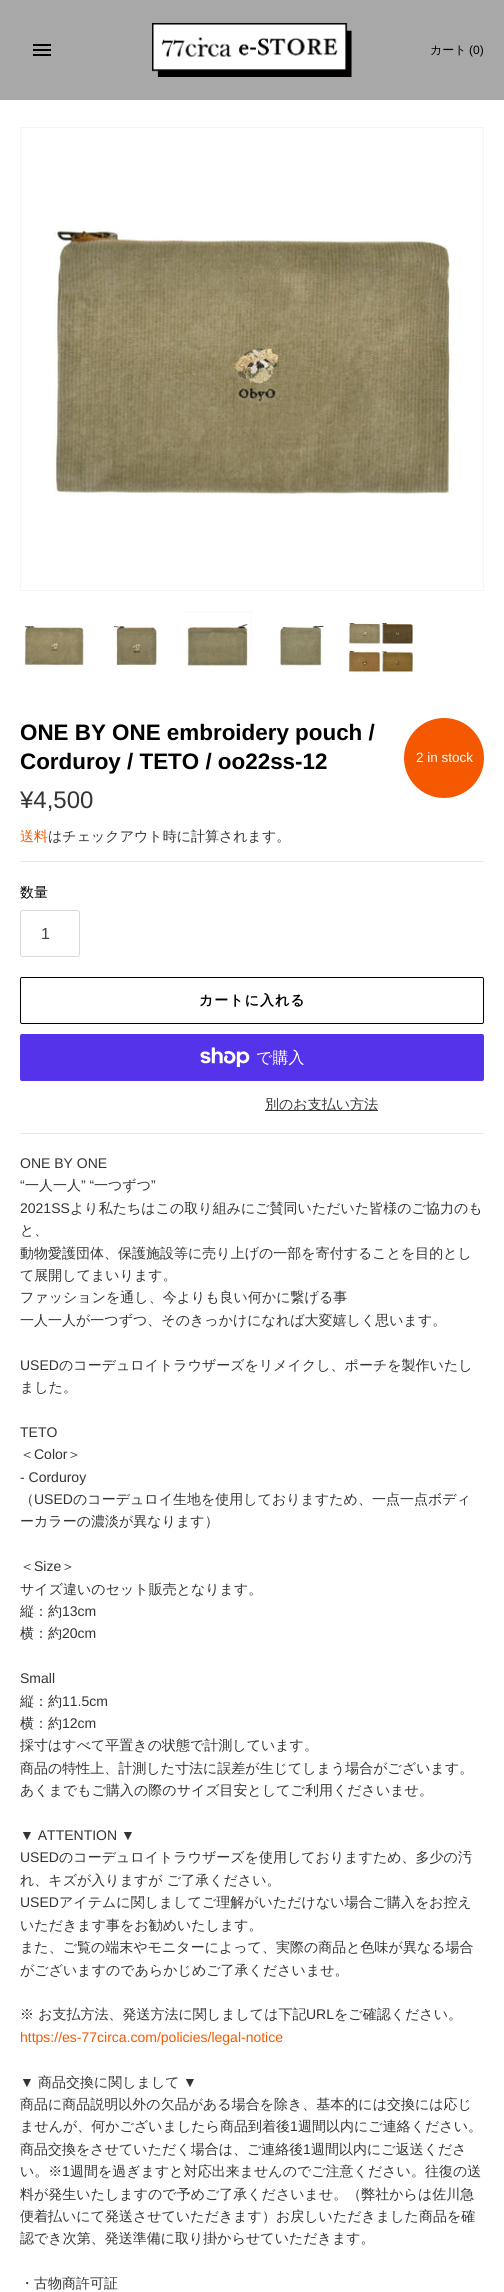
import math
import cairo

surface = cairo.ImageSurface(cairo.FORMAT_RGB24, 504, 2292)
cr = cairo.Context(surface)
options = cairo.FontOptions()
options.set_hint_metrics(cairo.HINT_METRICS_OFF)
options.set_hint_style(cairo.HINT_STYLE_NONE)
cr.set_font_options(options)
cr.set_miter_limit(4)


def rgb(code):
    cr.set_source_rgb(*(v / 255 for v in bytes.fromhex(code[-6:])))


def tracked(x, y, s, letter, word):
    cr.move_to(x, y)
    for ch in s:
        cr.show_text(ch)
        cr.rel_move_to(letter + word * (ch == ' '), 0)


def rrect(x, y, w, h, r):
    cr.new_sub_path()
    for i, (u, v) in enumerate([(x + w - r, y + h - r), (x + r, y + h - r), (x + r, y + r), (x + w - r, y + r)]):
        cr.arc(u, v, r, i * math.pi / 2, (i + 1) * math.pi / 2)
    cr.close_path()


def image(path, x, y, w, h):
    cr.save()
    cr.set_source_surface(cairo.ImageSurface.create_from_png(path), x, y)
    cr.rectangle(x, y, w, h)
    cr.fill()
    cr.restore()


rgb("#ffffff")
cr.paint()
rgb("#a9a8a8")
cr.rectangle(0, 0, 504, 100)
cr.fill()
image("img/1.png", 33, 44, 18, 12)
image("img/2.png", 152, 23, 200, 54)
cr.rectangle(20.5, 127.5, 463, 463)
rgb("#f5f5f5")
cr.set_line_width(1)
cr.stroke()
image("img/3.png", 53, 227, 402, 269)
image("img/4.png", 24, 626, 60, 40)
image("img/5.png", 114, 626, 43, 40)
image("img/6.png", 184, 611, 68, 55)
image("img/7.png", 280, 625, 44, 41)
image("img/8.png", 348, 622, 65, 51)
rgb("#f45902")
cr.arc(444, 758, 40, 0, 2 * math.pi)
cr.fill()
rgb("#e7e7e7")
cr.rectangle(20, 861, 464, 1)
cr.fill()
rrect(20.5, 910.5, 59, 46, 2.5)
rgb("#d9d9d9")
cr.stroke()
rrect(20.5, 977.5, 463, 46, 1.5)
rgb("#000000")
cr.stroke()
rgb("#5433eb")
rrect(20, 1034, 464, 47, 2)
cr.fill()
image("img/9.png", 200, 1047, 50, 20)
rgb("#343434")
cr.rectangle(265, 1110, 113, 1)
cr.fill()
rgb("#e7e7e7")
cr.rectangle(20, 1133, 464, 1)
cr.fill()
cr.select_font_face("WenQuanYi Zen Hei Medium")
cr.set_font_size(12)
rgb("#000000")
cr.move_to(430, 54)
cr.show_text("カート")
cr.select_font_face("Liberation Sans")
cr.move_to(469, 54)
cr.show_text("(0)")
cr.select_font_face("Liberation Sans", cairo.FONT_SLANT_NORMAL, cairo.FONT_WEIGHT_BOLD)
cr.set_font_size(22.4)
cr.move_to(20, 740)
cr.show_text("ONE BY ONE embroidery pouch /")
cr.move_to(20, 769)
cr.show_text("Corduroy / TETO / oo22ss-12")
cr.select_font_face("Liberation Sans")
cr.set_font_size(13.5)
rgb("#ffffff")
cr.move_to(416, 762)
cr.show_text("2 in stock")
cr.set_font_size(24)
rgb("#343434")
cr.move_to(20, 808)
cr.show_text("¥4,500")
cr.select_font_face("WenQuanYi Zen Hei Medium")
cr.set_font_size(14)
rgb("#f45902")
cr.move_to(20, 841)
cr.show_text("送料")
rgb("#343434")
cr.move_to(48, 841)
cr.show_text("はチェックアウト時に計算されます。")
rgb("#000000")
cr.move_to(20, 897)
cr.show_text("数量")
cr.select_font_face("Liberation Sans")
cr.set_font_size(16)
rgb("#444444")
cr.move_to(41, 939)
cr.show_text("1")
cr.select_font_face("WenQuanYi Zen Hei", cairo.FONT_SLANT_NORMAL, cairo.FONT_WEIGHT_BOLD)
cr.set_font_size(14)
rgb("#000000")
tracked(199, 1005, "カートに入れる", 1, 0)
cr.select_font_face("WenQuanYi Zen Hei Medium")
cr.set_font_size(16)
rgb("#ffffff")
cr.move_to(256, 1063)
cr.show_text("で購入")
cr.set_font_size(14)
rgb("#343434")
cr.move_to(265, 1109)
cr.show_text("別のお支払い方法")
cr.select_font_face("Liberation Sans")
cr.move_to(20, 1168)
cr.show_text("ONE BY ONE")
cr.move_to(20, 1190)
cr.show_text("“")
cr.select_font_face("WenQuanYi Zen Hei Medium")
cr.move_to(25, 1190)
cr.show_text("一人一人")
cr.select_font_face("Liberation Sans")
cr.move_to(81, 1190)
cr.show_text("” “")
cr.select_font_face("WenQuanYi Zen Hei Medium")
cr.move_to(94, 1190)
cr.show_text("一つずつ")
cr.select_font_face("Liberation Sans")
cr.move_to(151, 1190)
cr.show_text("”")
cr.move_to(20, 1213)
cr.show_text("2021SS")
cr.select_font_face("WenQuanYi Zen Hei Medium")
for x, y, s in [
    (70, 1213, "より私たちはこの取り組みにご賛同いただいた皆様のご協力のも"),
    (20, 1235, "と、"),
    (20, 1258, "動物愛護団体、保護施設等に売り上げの一部を寄付することを目的とし"),
    (20, 1280, "て展開してまいります。"),
    (20, 1302, "ファッションを通し、今よりも良い何かに繋げる事"),
    (20, 1325, "一人一人が一つずつ、そのきっかけになれば大変嬉しく思います。"),
]:
    cr.move_to(x, y)
    cr.show_text(s)
cr.select_font_face("Liberation Sans")
cr.move_to(20, 1370)
cr.show_text("USED")
cr.select_font_face("WenQuanYi Zen Hei Medium")
cr.move_to(59, 1370)
cr.show_text("のコーデュロイトラウザーズをリメイクし、ポーチを製作いたし")
cr.move_to(20, 1392)
cr.show_text("ました。")
cr.select_font_face("Liberation Sans")
cr.move_to(20, 1437)
cr.show_text("TETO")
cr.select_font_face("WenQuanYi Zen Hei Medium")
cr.move_to(20, 1459)
cr.show_text("＜")
cr.select_font_face("Liberation Sans")
cr.move_to(34, 1459)
cr.show_text("Color")
cr.select_font_face("WenQuanYi Zen Hei Medium")
cr.move_to(67, 1459)
cr.show_text("＞")
cr.select_font_face("Liberation Sans")
cr.move_to(20, 1482)
cr.show_text("- Corduroy")
cr.select_font_face("WenQuanYi Zen Hei Medium")
cr.move_to(20, 1504)
cr.show_text("（")
cr.select_font_face("Liberation Sans")
cr.move_to(34, 1504)
cr.show_text("USED")
cr.select_font_face("WenQuanYi Zen Hei Medium")
for x, y, s in [
    (73, 1504, "のコーデュロイ生地を使用しておりますため、一点一点ボディ"),
    (20, 1526, "ーカラーの濃淡が異なります）"),
    (20, 1571, "＜"),
]:
    cr.move_to(x, y)
    cr.show_text(s)
cr.select_font_face("Liberation Sans")
cr.move_to(34, 1571)
cr.show_text("Size")
cr.select_font_face("WenQuanYi Zen Hei Medium")
for x, y, s in [
    (61, 1571, "＞"),
    (20, 1594, "サイズ違いのセット販売となります。"),
    (20, 1616, "縦：約"),
]:
    cr.move_to(x, y)
    cr.show_text(s)
cr.select_font_face("Liberation Sans")
cr.move_to(62, 1616)
cr.show_text("13cm")
cr.select_font_face("WenQuanYi Zen Hei Medium")
cr.move_to(20, 1638)
cr.show_text("横：約")
cr.select_font_face("Liberation Sans")
cr.move_to(62, 1638)
cr.show_text("20cm")
cr.move_to(20, 1683)
cr.show_text("Small")
cr.select_font_face("WenQuanYi Zen Hei Medium")
cr.move_to(20, 1706)
cr.show_text("縦：約")
cr.select_font_face("Liberation Sans")
cr.move_to(62, 1706)
cr.show_text("11.5cm")
cr.select_font_face("WenQuanYi Zen Hei Medium")
cr.move_to(20, 1728)
cr.show_text("横：約")
cr.select_font_face("Liberation Sans")
cr.move_to(62, 1728)
cr.show_text("12cm")
cr.select_font_face("WenQuanYi Zen Hei Medium")
for x, y, s in [
    (20, 1750, "採寸はすべて平置きの状態で計測しています。"),
    (20, 1773, "商品の特性上、計測した寸法に誤差が生じてしまう場合がございます。"),
    (20, 1795, "あくまでもご購入の際のサイズ目安としてご利用くださいませ。"),
]:
    cr.move_to(x, y)
    cr.show_text(s)
cr.select_font_face("Liberation Sans")
cr.move_to(20, 1840)
cr.show_text("▼ ATTENTION ▼")
cr.move_to(20, 1862)
cr.show_text("USED")
cr.select_font_face("WenQuanYi Zen Hei Medium")
cr.move_to(59, 1862)
cr.show_text("のコーデュロイトラウザーズを使用しておりますため、多少の汚")
cr.move_to(20, 1885)
cr.show_text("れ、キズが入りますが ご了承ください。")
cr.select_font_face("Liberation Sans")
cr.move_to(20, 1907)
cr.show_text("USED")
cr.select_font_face("WenQuanYi Zen Hei Medium")
for x, y, s in [
    (59, 1907, "アイテムに関しましてご理解がいただけない場合ご購入をお控え"),
    (20, 1930, "いただきます事をお勧めいたします。"),
    (20, 1952, "また、ご覧の端末やモニターによって、実際の商品と色味が異なる場合"),
    (20, 1975, "がございますのであらかじめご了承くださいませ。"),
    (20, 2019, "※ お支払方法、発送方法に関しましては下記"),
]:
    cr.move_to(x, y)
    cr.show_text(s)
cr.select_font_face("Liberation Sans")
cr.move_to(306, 2019)
cr.show_text("URL")
cr.select_font_face("WenQuanYi Zen Hei Medium")
cr.move_to(334, 2019)
cr.show_text("をご確認ください。")
cr.select_font_face("Liberation Sans")
rgb("#f45902")
cr.move_to(20, 2042)
cr.show_text("https://es-77circa.com/policies/legal-notice")
rgb("#343434")
cr.move_to(20, 2087)
cr.show_text("▼")
cr.select_font_face("WenQuanYi Zen Hei Medium")
cr.move_to(38, 2087)
cr.show_text("商品交換に関しまして")
cr.select_font_face("Liberation Sans")
cr.move_to(183, 2087)
cr.show_text("▼")
cr.select_font_face("WenQuanYi Zen Hei Medium")
cr.move_to(20, 2109)
cr.show_text("商品に商品説明以外の欠品がある場合を除き、基本的には交換には応じ")
cr.move_to(20, 2131)
cr.show_text("ませんが、何かございましたら商品到着後")
cr.select_font_face("Liberation Sans")
cr.move_to(290, 2131)
cr.show_text("1")
cr.select_font_face("WenQuanYi Zen Hei Medium")
cr.move_to(298, 2131)
cr.show_text("週間以内にご連絡ください。")
cr.move_to(20, 2154)
cr.show_text("商品交換をさせていただく場合は、ご連絡後")
cr.select_font_face("Liberation Sans")
cr.move_to(303, 2154)
cr.show_text("1")
cr.select_font_face("WenQuanYi Zen Hei Medium")
cr.move_to(311, 2154)
cr.show_text("週間以内にご返送くださ")
cr.move_to(20, 2176)
cr.show_text("い。※")
cr.select_font_face("Liberation Sans")
cr.move_to(62, 2176)
cr.show_text("1")
cr.select_font_face("WenQuanYi Zen Hei Medium")
for x, y, s in [
    (70, 2176, "週間を過ぎますと対応出来ませんのでご注意ください。往復の送"),
    (20, 2199, "料が発生いたしますので予めご了承くださいませ。（弊社からは佐川急"),
    (20, 2221, "便着払いにて発送させていただきます）お戻しいただきました商品を確"),
    (20, 2243, "認でき次第、発送準備に取り掛からせていただきます。"),
    (20, 2288, "・古物商許可証"),
]:
    cr.move_to(x, y)
    cr.show_text(s)
surface.write_to_png("page.png")
